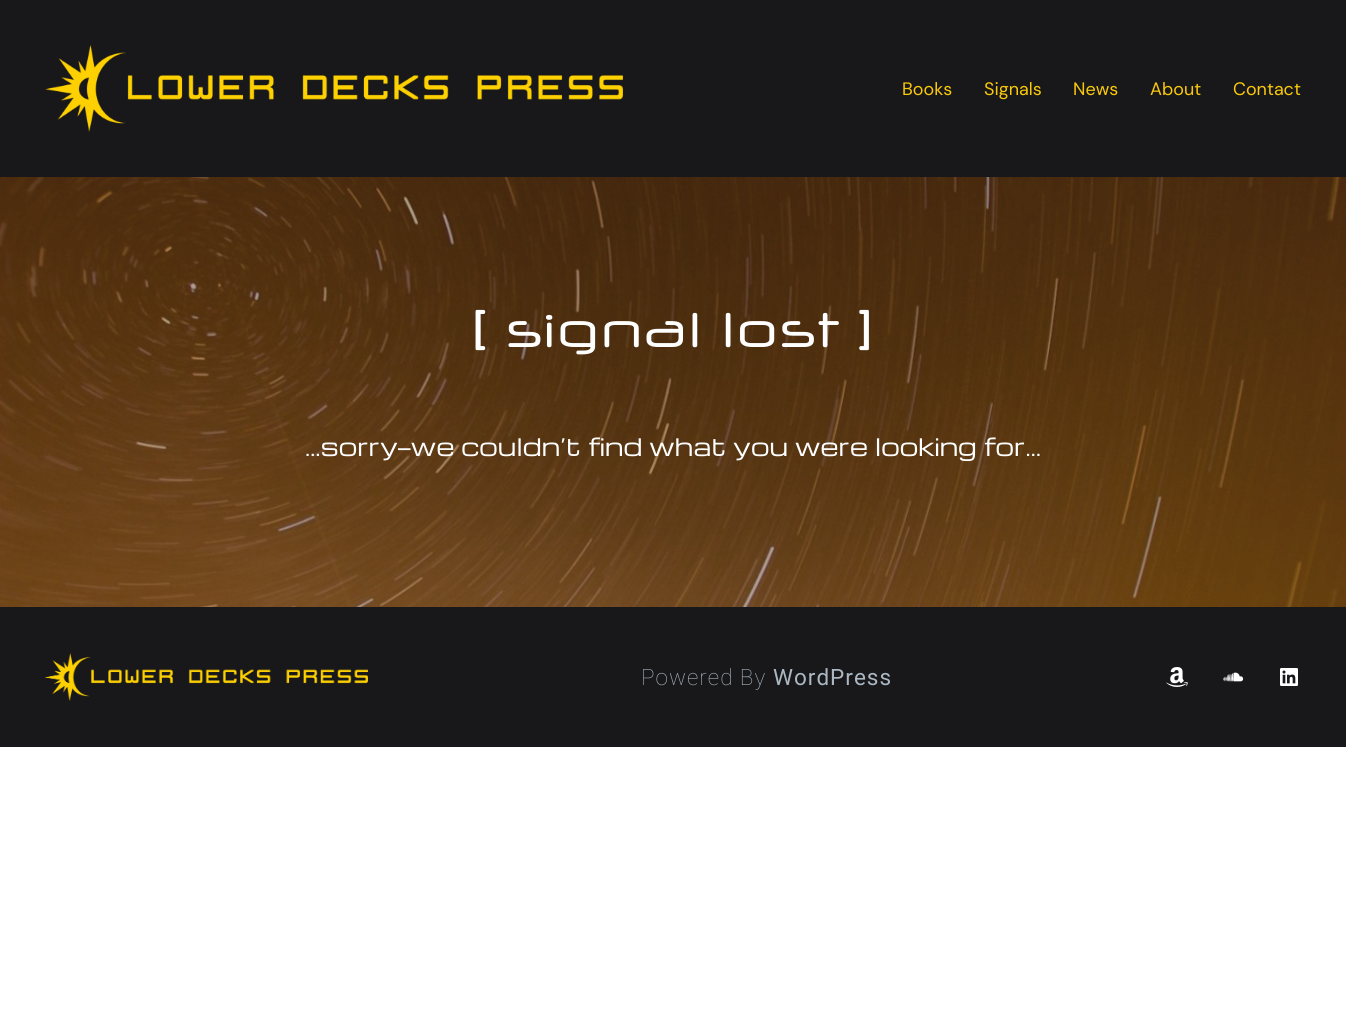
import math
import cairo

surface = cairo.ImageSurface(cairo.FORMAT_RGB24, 1346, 1021)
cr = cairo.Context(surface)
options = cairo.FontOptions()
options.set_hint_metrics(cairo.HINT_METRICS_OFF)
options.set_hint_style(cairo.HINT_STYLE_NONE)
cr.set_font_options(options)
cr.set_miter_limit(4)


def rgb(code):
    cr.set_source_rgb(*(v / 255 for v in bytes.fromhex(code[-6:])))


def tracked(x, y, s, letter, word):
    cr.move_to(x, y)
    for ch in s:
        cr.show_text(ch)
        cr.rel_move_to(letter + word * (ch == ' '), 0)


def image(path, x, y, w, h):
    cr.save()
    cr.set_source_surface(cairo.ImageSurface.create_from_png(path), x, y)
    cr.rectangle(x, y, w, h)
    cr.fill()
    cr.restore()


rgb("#ffffff")
cr.paint()
rgb("#18181a")
cr.rectangle(0, 0, 1346, 177)
cr.fill()
image("img/1.png", 45, 45, 578, 87)
image("img/2.png", 0, 177, 1346, 430)
cr.rectangle(0, 607, 1346, 140)
cr.fill()
image("img/3.png", 45, 653, 323, 48)
image("img/4.png", 1166, 667, 22, 20)
image("img/5.png", 1223, 672, 21, 10)
image("img/6.png", 1280, 668, 18, 18)
cr.select_font_face("DM Sans")
cr.set_font_size(18)
rgb("#fac90a")
for x, y, s in [
    (902, 95, "Books"),
    (984, 95, "Signals"),
    (1073, 95, "News"),
    (1150, 95, "About"),
    (1233, 95, "Contact"),
]:
    cr.move_to(x, y)
    cr.show_text(s)
cr.select_font_face("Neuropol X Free")
cr.set_font_size(48.5)
rgb("#ffffff")
cr.move_to(471, 347)
cr.show_text("[ signal lost ]")
cr.select_font_face("Michroma")
cr.set_font_size(23.6)
cr.move_to(305, 456)
cr.show_text("…sorry—we couldn’t find what you were looking for…")
cr.select_font_face("Roboto Thin")
cr.set_font_size(22.5)
rgb("#abb8c3")
tracked(641, 685, "Powered By", 1, 0)
cr.select_font_face("Roboto")
tracked(773, 685, "WordPress", 1, 0)
surface.write_to_png("page.png")
